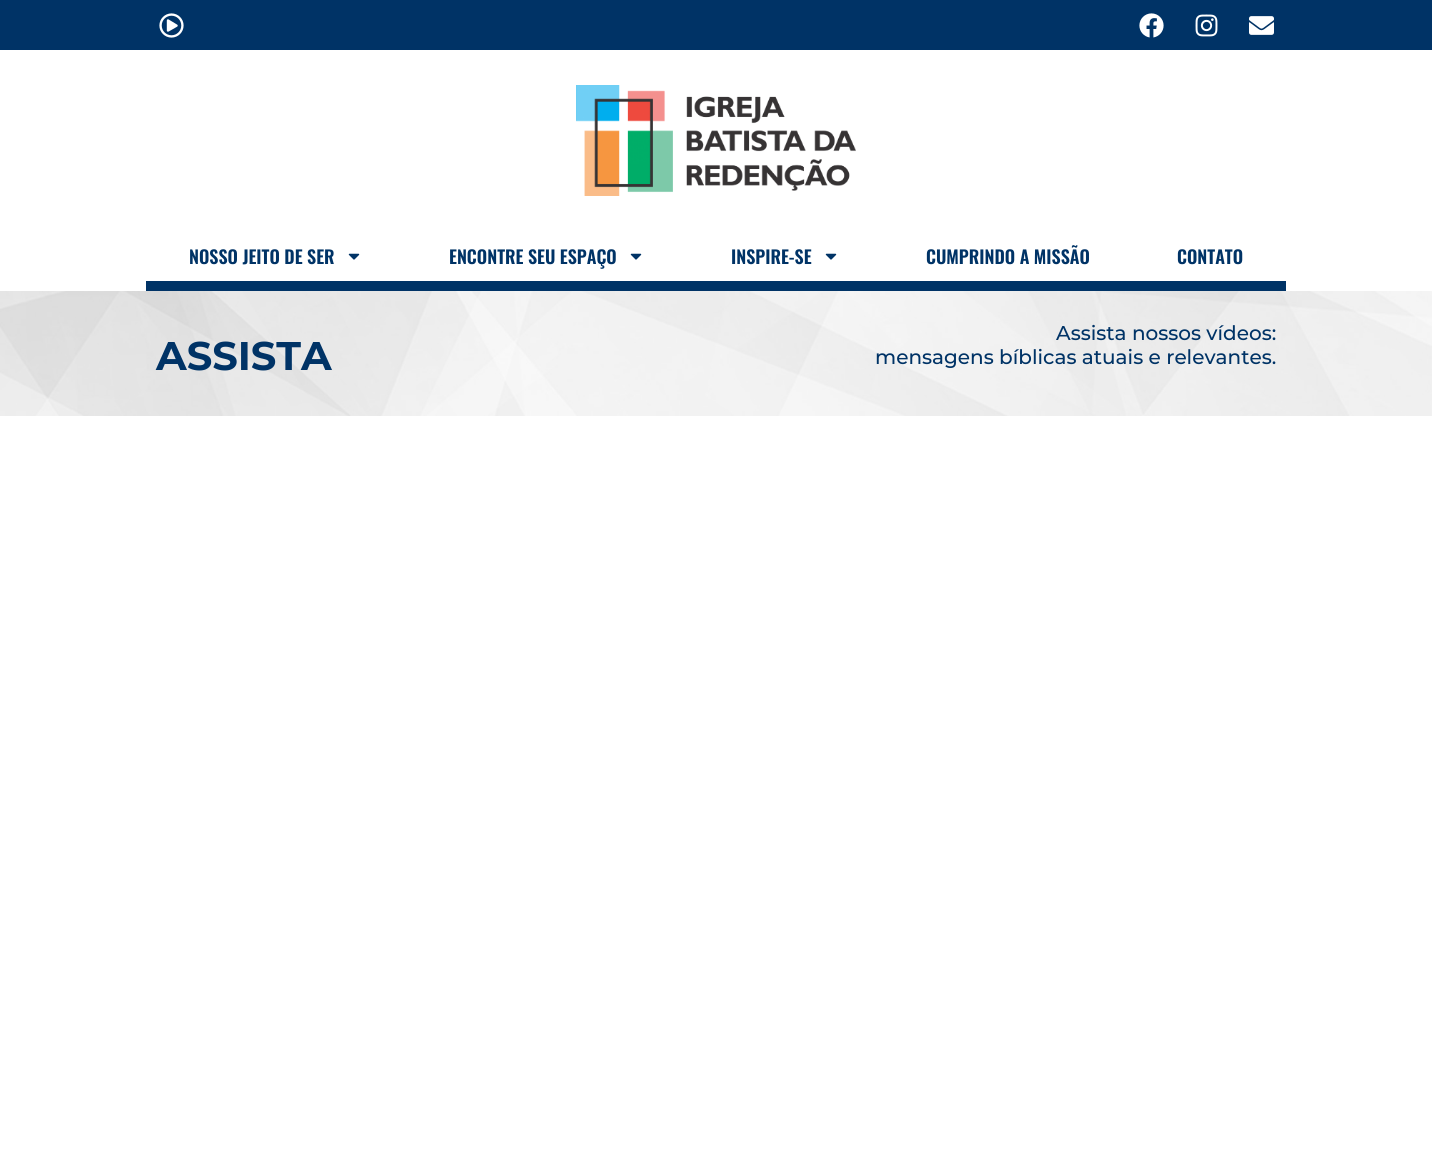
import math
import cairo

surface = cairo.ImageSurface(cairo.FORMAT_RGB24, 1432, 1164)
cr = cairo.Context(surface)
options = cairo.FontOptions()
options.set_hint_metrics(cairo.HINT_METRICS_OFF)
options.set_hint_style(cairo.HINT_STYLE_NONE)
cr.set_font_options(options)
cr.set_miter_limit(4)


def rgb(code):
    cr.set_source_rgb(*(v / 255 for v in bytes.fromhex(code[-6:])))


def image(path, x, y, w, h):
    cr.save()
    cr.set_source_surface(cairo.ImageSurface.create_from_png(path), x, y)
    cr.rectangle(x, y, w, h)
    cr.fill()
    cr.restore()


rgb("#ffffff")
cr.paint()
rgb("#003366")
cr.rectangle(0, 0, 1432, 50)
cr.fill()
image("img/1.png", 159, 13, 25, 25)
image("img/2.png", 1139, 13, 25, 25)
image("img/3.png", 1195, 14, 23, 23)
image("img/4.png", 1249, 16, 25, 19)
image("img/5.png", 576, 85, 280, 111)
image("img/6.png", 348, 253, 12, 7)
image("img/6.png", 630, 253, 12, 7)
image("img/6.png", 825, 253, 12, 7)
cr.rectangle(146, 281, 1140, 10)
cr.fill()
image("img/7.png", 0, 291, 1432, 125)
cr.select_font_face("Oswald SemiBold")
cr.set_font_size(18)
for x, y, s in [
    (189, 264, "NOSSO JEITO DE SER"),
    (449, 264, "ENCONTRE SEU ESPAÇO"),
    (731, 264, "INSPIRE-SE"),
    (926, 264, "CUMPRINDO A MISSÃO"),
    (1177, 264, "CONTATO"),
]:
    cr.move_to(x, y)
    cr.show_text(s)
cr.select_font_face("Montserrat", cairo.FONT_SLANT_NORMAL, cairo.FONT_WEIGHT_BOLD)
cr.set_font_size(40)
cr.move_to(156, 370)
cr.show_text("ASSISTA")
cr.select_font_face("Montserrat Medium")
cr.set_font_size(20)
cr.move_to(1056, 340)
cr.show_text("Assista nossos vídeos:")
cr.move_to(875, 364)
cr.show_text("mensagens bíblicas atuais e relevantes.")
surface.write_to_png("page.png")
